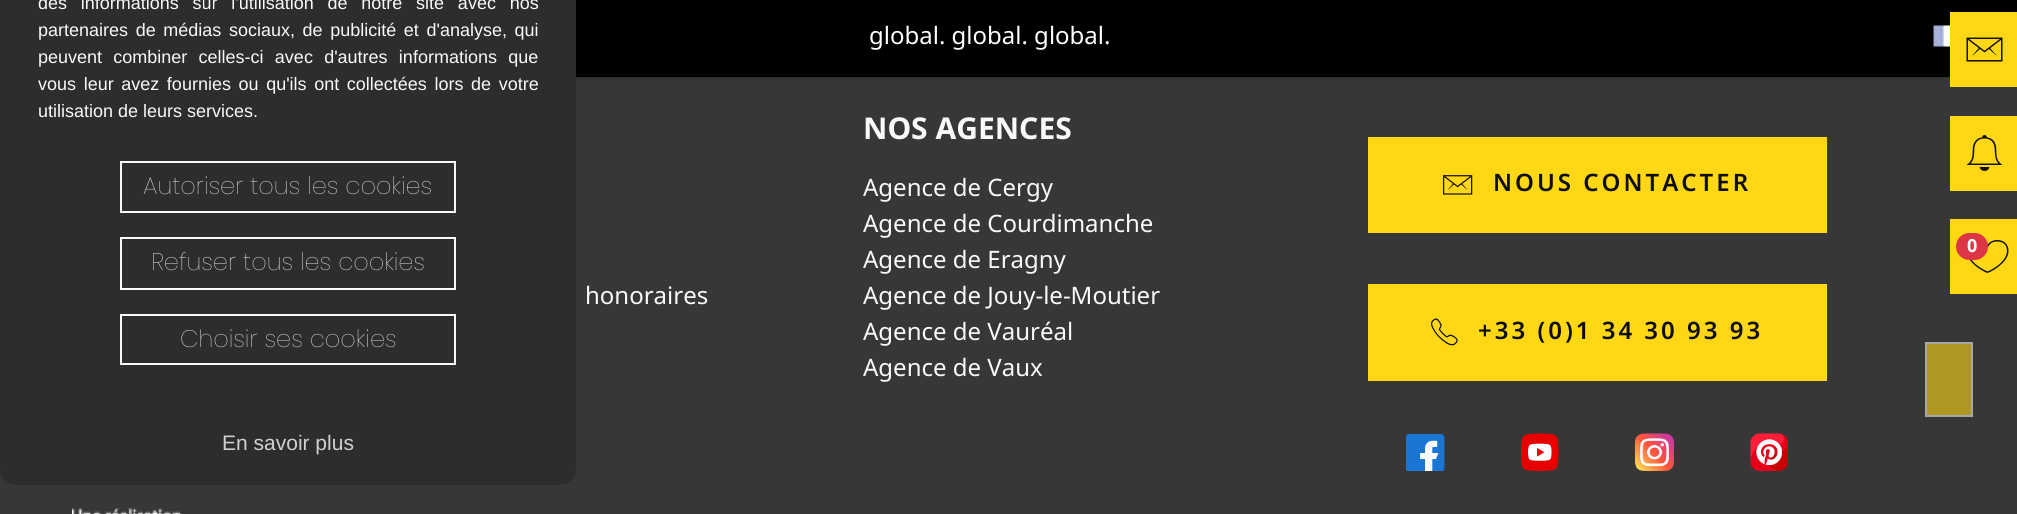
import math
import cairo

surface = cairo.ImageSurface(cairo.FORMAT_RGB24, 2017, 514)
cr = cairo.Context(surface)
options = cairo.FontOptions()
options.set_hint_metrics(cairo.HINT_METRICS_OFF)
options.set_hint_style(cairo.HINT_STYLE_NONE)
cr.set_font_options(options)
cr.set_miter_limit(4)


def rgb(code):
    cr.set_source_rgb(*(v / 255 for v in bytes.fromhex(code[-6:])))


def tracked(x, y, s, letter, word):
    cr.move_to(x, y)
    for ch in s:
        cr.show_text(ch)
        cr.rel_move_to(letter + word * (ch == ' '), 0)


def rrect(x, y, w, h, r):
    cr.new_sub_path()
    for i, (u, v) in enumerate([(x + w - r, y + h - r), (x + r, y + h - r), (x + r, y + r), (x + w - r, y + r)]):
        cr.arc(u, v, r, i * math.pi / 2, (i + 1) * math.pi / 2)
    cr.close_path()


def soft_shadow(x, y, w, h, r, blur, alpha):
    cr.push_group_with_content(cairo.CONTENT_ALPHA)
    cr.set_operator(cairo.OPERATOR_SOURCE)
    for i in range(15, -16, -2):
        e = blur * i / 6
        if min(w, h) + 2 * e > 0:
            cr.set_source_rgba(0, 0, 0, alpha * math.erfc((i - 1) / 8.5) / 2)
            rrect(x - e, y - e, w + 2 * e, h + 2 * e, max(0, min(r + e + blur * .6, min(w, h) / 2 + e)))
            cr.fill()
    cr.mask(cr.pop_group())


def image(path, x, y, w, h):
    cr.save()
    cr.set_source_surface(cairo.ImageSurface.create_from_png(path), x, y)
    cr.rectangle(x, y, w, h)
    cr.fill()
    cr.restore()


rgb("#373738")
cr.paint()
rgb("#000000")
soft_shadow(0, 2, 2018, 76, 0, 1.5, 0.2)
rgb("#2e2d2c")
rrect(0, -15, 576, 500, 15)
cr.fill()
cr.rectangle(121, 162, 334, 50)
rgb("#f8f9f9")
cr.stroke()
cr.rectangle(121, 238, 334, 51)
cr.stroke()
cr.rectangle(121, 315, 334, 49)
cr.stroke()
rgb("#000000")
cr.rectangle(576, 0, 1441, 77)
cr.fill()
image("img/1.png", 1933, 25, 17, 22)
rgb("#ffd715")
cr.rectangle(1368, 137, 459, 96)
cr.fill()
image("img/2.png", 1443, 175, 30, 20)
cr.rectangle(1368, 284, 459, 97)
cr.fill()
image("img/3.png", 1431, 318, 27, 28)
image("img/4.png", 1406, 434, 39, 37)
image("img/5.png", 1521, 433, 38, 38)
image("img/6.png", 1635, 433, 39, 38)
image("img/7.png", 1750, 433, 38, 38)
cr.rectangle(1950, 12, 67, 75)
cr.fill()
image("img/8.png", 1966, 37, 37, 25)
cr.rectangle(1950, 116, 67, 75)
cr.fill()
image("img/9.png", 1966, 135, 37, 36)
cr.rectangle(1950, 219, 67, 75)
cr.fill()
image("img/10.png", 1969, 240, 40, 33)
rgb("#dc3545")
rrect(1956, 233, 32, 27, 13.5)
cr.fill()
rgb("#af9723")
cr.rectangle(1926, 343, 46, 73)
cr.fill_preserve()
rgb("#a7a7a7")
cr.stroke()
image("img/11.png", 72, 508, 110, 6)
cr.select_font_face("Liberation Sans")
cr.set_font_size(18)
rgb("#f9f9f9")
tracked(38, 9, "des informations sur l'utilisation de notre site avec nos", 0, 8.75)
tracked(38, 36, "partenaires de médias sociaux, de publicité et d'analyse, qui", 0, 2.6)
tracked(38, 63, "peuvent combiner celles-ci avec d'autres informations que", 0, 6.25)
tracked(38, 90, "vous leur avez fournies ou qu'ils ont collectées lors de votre", 0, 2.6)
cr.move_to(38, 117)
cr.show_text("utilisation de leurs services.")
cr.select_font_face("Poppins ExtraLight")
cr.set_font_size(24)
for x, y, s in [
    (143, 194, "Autoriser tous les cookies"),
    (151, 270, "Refuser tous les cookies"),
    (180, 347, "Choisir ses cookies"),
]:
    cr.move_to(x, y)
    cr.show_text(s)
cr.select_font_face("Liberation Sans")
cr.set_font_size(21)
rgb("#d0d0d0")
cr.move_to(222, 450)
cr.show_text("En savoir plus")
cr.select_font_face("Noto Sans")
cr.set_font_size(24)
rgb("#ffffff")
cr.move_to(869, 44)
cr.show_text("global. global. global.")
rgb("#f9f9f9")
cr.move_to(585, 304)
cr.show_text("honoraires")
cr.select_font_face("Noto Sans", cairo.FONT_SLANT_NORMAL, cairo.FONT_WEIGHT_BOLD)
cr.set_font_size(30)
cr.move_to(863, 139)
cr.show_text("NOS AGENCES")
cr.select_font_face("Noto Sans")
cr.set_font_size(24)
for x, y, s in [
    (863, 196, "Agence de Cergy"),
    (863, 232, "Agence de Courdimanche"),
    (863, 268, "Agence de Eragny"),
    (863, 304, "Agence de Jouy-le-Moutier"),
    (863, 340, "Agence de Vauréal"),
    (863, 376, "Agence de Vaux"),
]:
    cr.move_to(x, y)
    cr.show_text(s)
cr.select_font_face("Noto Sans SemiBold")
rgb("#0d0d0d")
tracked(1493, 191, "NOUS CONTACTER", 3, 0)
tracked(1478, 339, "+33 (0)1 34 30 93 93", 3, 0)
cr.select_font_face("Noto Sans", cairo.FONT_SLANT_NORMAL, cairo.FONT_WEIGHT_BOLD)
cr.set_font_size(18)
rgb("#ffffff")
cr.move_to(1967, 252)
cr.show_text("0")
surface.write_to_png("page.png")
